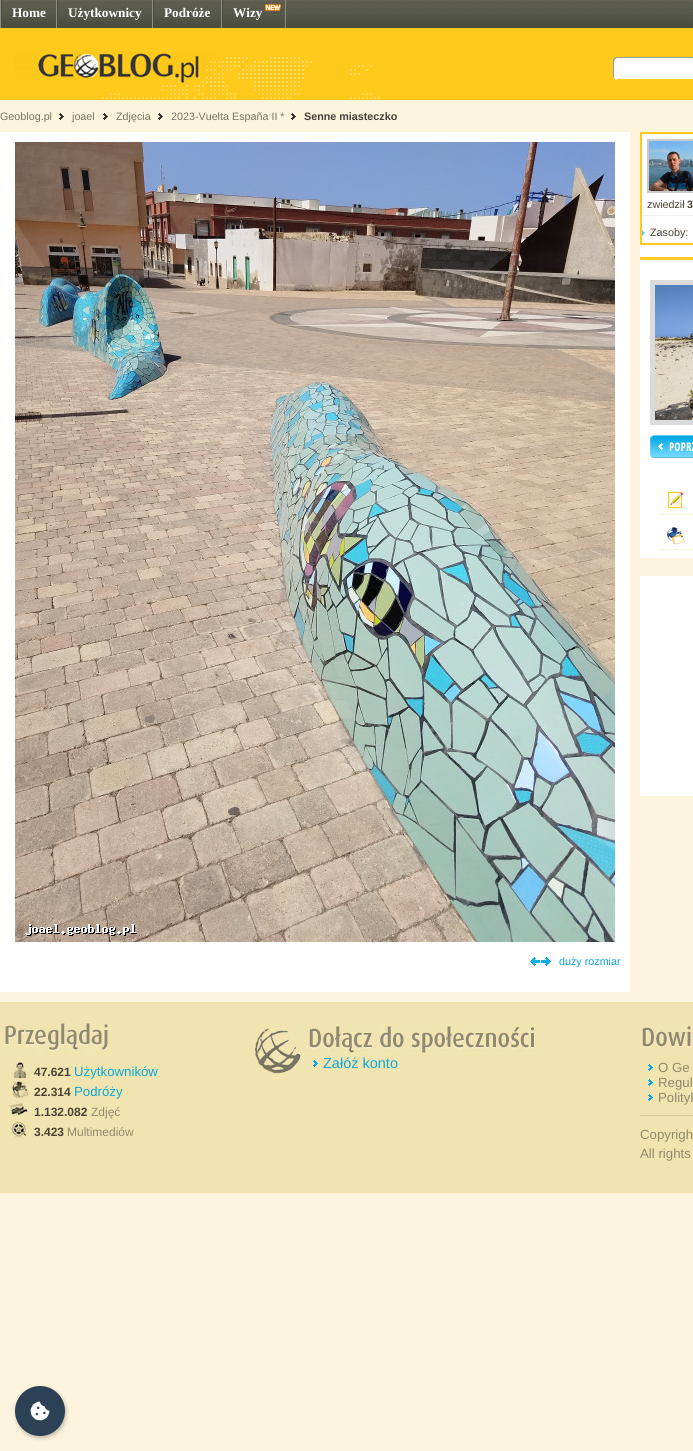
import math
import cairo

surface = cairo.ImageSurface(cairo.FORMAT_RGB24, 693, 1451)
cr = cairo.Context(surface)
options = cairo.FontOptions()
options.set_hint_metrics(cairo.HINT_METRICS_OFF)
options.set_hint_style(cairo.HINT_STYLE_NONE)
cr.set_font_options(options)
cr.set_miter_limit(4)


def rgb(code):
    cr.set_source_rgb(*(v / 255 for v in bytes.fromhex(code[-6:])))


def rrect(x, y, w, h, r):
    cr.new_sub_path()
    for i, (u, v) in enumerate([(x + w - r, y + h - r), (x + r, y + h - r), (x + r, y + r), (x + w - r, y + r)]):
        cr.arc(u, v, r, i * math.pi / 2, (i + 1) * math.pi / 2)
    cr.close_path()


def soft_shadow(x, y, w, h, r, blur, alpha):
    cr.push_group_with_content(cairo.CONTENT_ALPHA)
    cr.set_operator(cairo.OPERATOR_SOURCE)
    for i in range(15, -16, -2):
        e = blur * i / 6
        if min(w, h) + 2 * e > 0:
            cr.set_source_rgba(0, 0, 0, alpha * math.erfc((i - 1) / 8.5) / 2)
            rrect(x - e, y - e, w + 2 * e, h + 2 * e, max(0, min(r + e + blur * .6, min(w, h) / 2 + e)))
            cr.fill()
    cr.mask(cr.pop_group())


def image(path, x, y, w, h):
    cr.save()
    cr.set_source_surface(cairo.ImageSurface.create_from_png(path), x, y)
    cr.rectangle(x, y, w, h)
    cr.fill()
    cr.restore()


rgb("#fcf4dd")
cr.paint()
image("img/1.png", 2, 0, 691, 28)
for x, y, w, h, color in [
    (0, 0, 1, 28, "#8c8d83"),
    (56, 0, 1, 28, "#8c8d83"),
    (1, 0, 1, 28, "#494a41"),
    (152, 0, 1, 28, "#8c8d83"),
    (57, 0, 1, 28, "#494a41"),
    (221, 0, 1, 28, "#8c8d83"),
    (153, 0, 1, 28, "#494a41"),
    (285, 0, 1, 28, "#8c8d83"),
    (222, 0, 1, 28, "#494a41"),
]:
    rgb(color)
    cr.rectangle(x, y, w, h)
    cr.fill()
image("img/2.png", 265, 4, 16, 7)
rgb("#ffca1c")
cr.rectangle(0, 28, 693, 72)
cr.fill()
image("img/3.png", 0, 52, 380, 48)
image("img/4.png", 613, 56, 4, 25)
rgb("#ffffff")
cr.rectangle(617, 78, 76, 1)
cr.fill()
image("img/5.png", 617, 56, 76, 22)
image("img/6.png", 59, 113, 5, 7)
image("img/6.png", 103, 113, 5, 7)
image("img/6.png", 158, 113, 5, 7)
image("img/6.png", 291, 113, 5, 7)
cr.rectangle(640, 134, 53, 424)
cr.fill()
cr.rectangle(641, 133, 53, 111)
rgb("#ffca1c")
cr.stroke()
rgb("#f0f0f0")
cr.rectangle(642, 215, 51, 1)
cr.fill()
cr.rectangle(648, 140, 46, 52)
rgb("#cacaca")
cr.stroke()
image("img/7.png", 649, 141, 44, 50)
image("img/8.png", 642, 230, 3, 6)
image("img/9.png", 640, 257, 53, 3)
cr.rectangle(652.5, 282.5, 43, 140)
rgb("#dbdbdb")
cr.set_line_width(5)
cr.stroke()
image("img/10.png", 655, 285, 38, 135)
image("img/11.png", 650, 435, 43, 23)
rgb("#faf5df")
cr.rectangle(660, 514, 33, 1)
cr.fill()
image("img/12.png", 668, 492, 16, 16)
cr.rectangle(660, 549, 33, 1)
cr.fill()
image("img/13.png", 667, 527, 18, 18)
rgb("#ffffff")
cr.rectangle(640, 576, 53, 220)
cr.fill()
cr.rectangle(0, 132, 630, 860)
cr.fill()
image("img/14.png", 15, 142, 600, 800)
image("img/15.png", 530, 957, 21, 9)
rgb("#f2e4b1")
cr.rectangle(0, 1002, 693, 191)
cr.fill()
image("img/16.png", 252, 1024, 52, 52)
image("img/17.png", 305, 1024, 234, 31)
image("img/18.png", 310, 1058, 9, 12)
image("img/19.png", 4, 1022, 104, 32)
image("img/20.png", 11, 1062, 16, 16)
image("img/21.png", 11, 1081, 18, 17)
image("img/22.png", 10, 1102, 19, 16)
image("img/23.png", 11, 1121, 16, 17)
image("img/24.png", 642, 1024, 51, 24)
rgb("#d7c99a")
cr.rectangle(640, 1115, 53, 1)
cr.fill()
image("img/18.png", 645, 1062, 9, 12)
image("img/18.png", 645, 1077, 9, 12)
image("img/18.png", 645, 1092, 9, 12)
rgb("#000000")
soft_shadow(16, 1388, 50, 50, 25, 2, 0.25)
rgb("#2d4156")
cr.arc(40, 1411, 25, 0, 2 * math.pi)
cr.fill()
image("img/25.png", 30, 1401, 20, 20)
cr.select_font_face("Liberation Serif", cairo.FONT_SLANT_NORMAL, cairo.FONT_WEIGHT_BOLD)
cr.set_font_size(13.25)
rgb("#ffffff")
for x, y, s in [
    (12, 17, "Home"),
    (68, 17, "Użytkownicy"),
    (164, 17, "Podróże"),
    (233, 17, "Wizy"),
]:
    cr.move_to(x, y)
    cr.show_text(s)
cr.select_font_face("Liberation Sans")
cr.set_font_size(10.75)
rgb("#76765c")
for x, y, s in [
    (0, 120, "Geoblog.pl"),
    (72, 120, "joael"),
    (116, 120, "Zdjęcia"),
    (171, 120, "2023-Vuelta España II *"),
]:
    cr.move_to(x, y)
    cr.show_text(s)
cr.select_font_face("Liberation Sans", cairo.FONT_SLANT_NORMAL, cairo.FONT_WEIGHT_BOLD)
rgb("#443f39")
cr.move_to(304, 120)
cr.show_text("Senne miasteczko")
cr.select_font_face("Liberation Sans")
rgb("#4b4233")
cr.move_to(647, 208)
cr.show_text("zwiedził")
cr.select_font_face("Liberation Sans", cairo.FONT_SLANT_NORMAL, cairo.FONT_WEIGHT_BOLD)
cr.move_to(687, 208)
cr.show_text("3")
cr.select_font_face("Liberation Sans")
cr.move_to(650, 236)
cr.show_text("Zasoby:")
rgb("#0ba7d8")
cr.move_to(559, 965)
cr.show_text("duży rozmiar")
cr.set_font_size(14.5)
cr.move_to(323, 1068)
cr.show_text("Załóż konto")
cr.select_font_face("Liberation Sans", cairo.FONT_SLANT_NORMAL, cairo.FONT_WEIGHT_BOLD)
cr.set_font_size(12)
rgb("#4b4233")
cr.move_to(34, 1076)
cr.show_text("47.621")
cr.select_font_face("Liberation Sans")
cr.set_font_size(13.25)
rgb("#0ba7d8")
cr.move_to(74, 1076)
cr.show_text("Użytkowników")
cr.select_font_face("Liberation Sans", cairo.FONT_SLANT_NORMAL, cairo.FONT_WEIGHT_BOLD)
cr.set_font_size(12)
rgb("#4b4233")
cr.move_to(34, 1096)
cr.show_text("22.314")
cr.select_font_face("Liberation Sans")
cr.set_font_size(13.25)
rgb("#0ba7d8")
cr.move_to(74, 1096)
cr.show_text("Podróży")
cr.select_font_face("Liberation Sans", cairo.FONT_SLANT_NORMAL, cairo.FONT_WEIGHT_BOLD)
cr.set_font_size(12)
rgb("#4b4233")
cr.move_to(34, 1116)
cr.show_text("1.132.082")
cr.select_font_face("Liberation Sans")
rgb("#92886a")
cr.move_to(91, 1116)
cr.show_text("Zdjęć")
cr.select_font_face("Liberation Sans", cairo.FONT_SLANT_NORMAL, cairo.FONT_WEIGHT_BOLD)
rgb("#4b4233")
cr.move_to(34, 1136)
cr.show_text("3.423")
cr.select_font_face("Liberation Sans")
rgb("#92886a")
cr.move_to(67, 1136)
cr.show_text("Multimediów")
cr.set_font_size(13.25)
for x, y, s in [
    (658, 1072, "O Ge"),
    (658, 1087, "Regul"),
    (658, 1102, "Polityk"),
    (640, 1139, "Copyrigh"),
    (640, 1158, "All rights"),
]:
    cr.move_to(x, y)
    cr.show_text(s)
surface.write_to_png("page.png")
